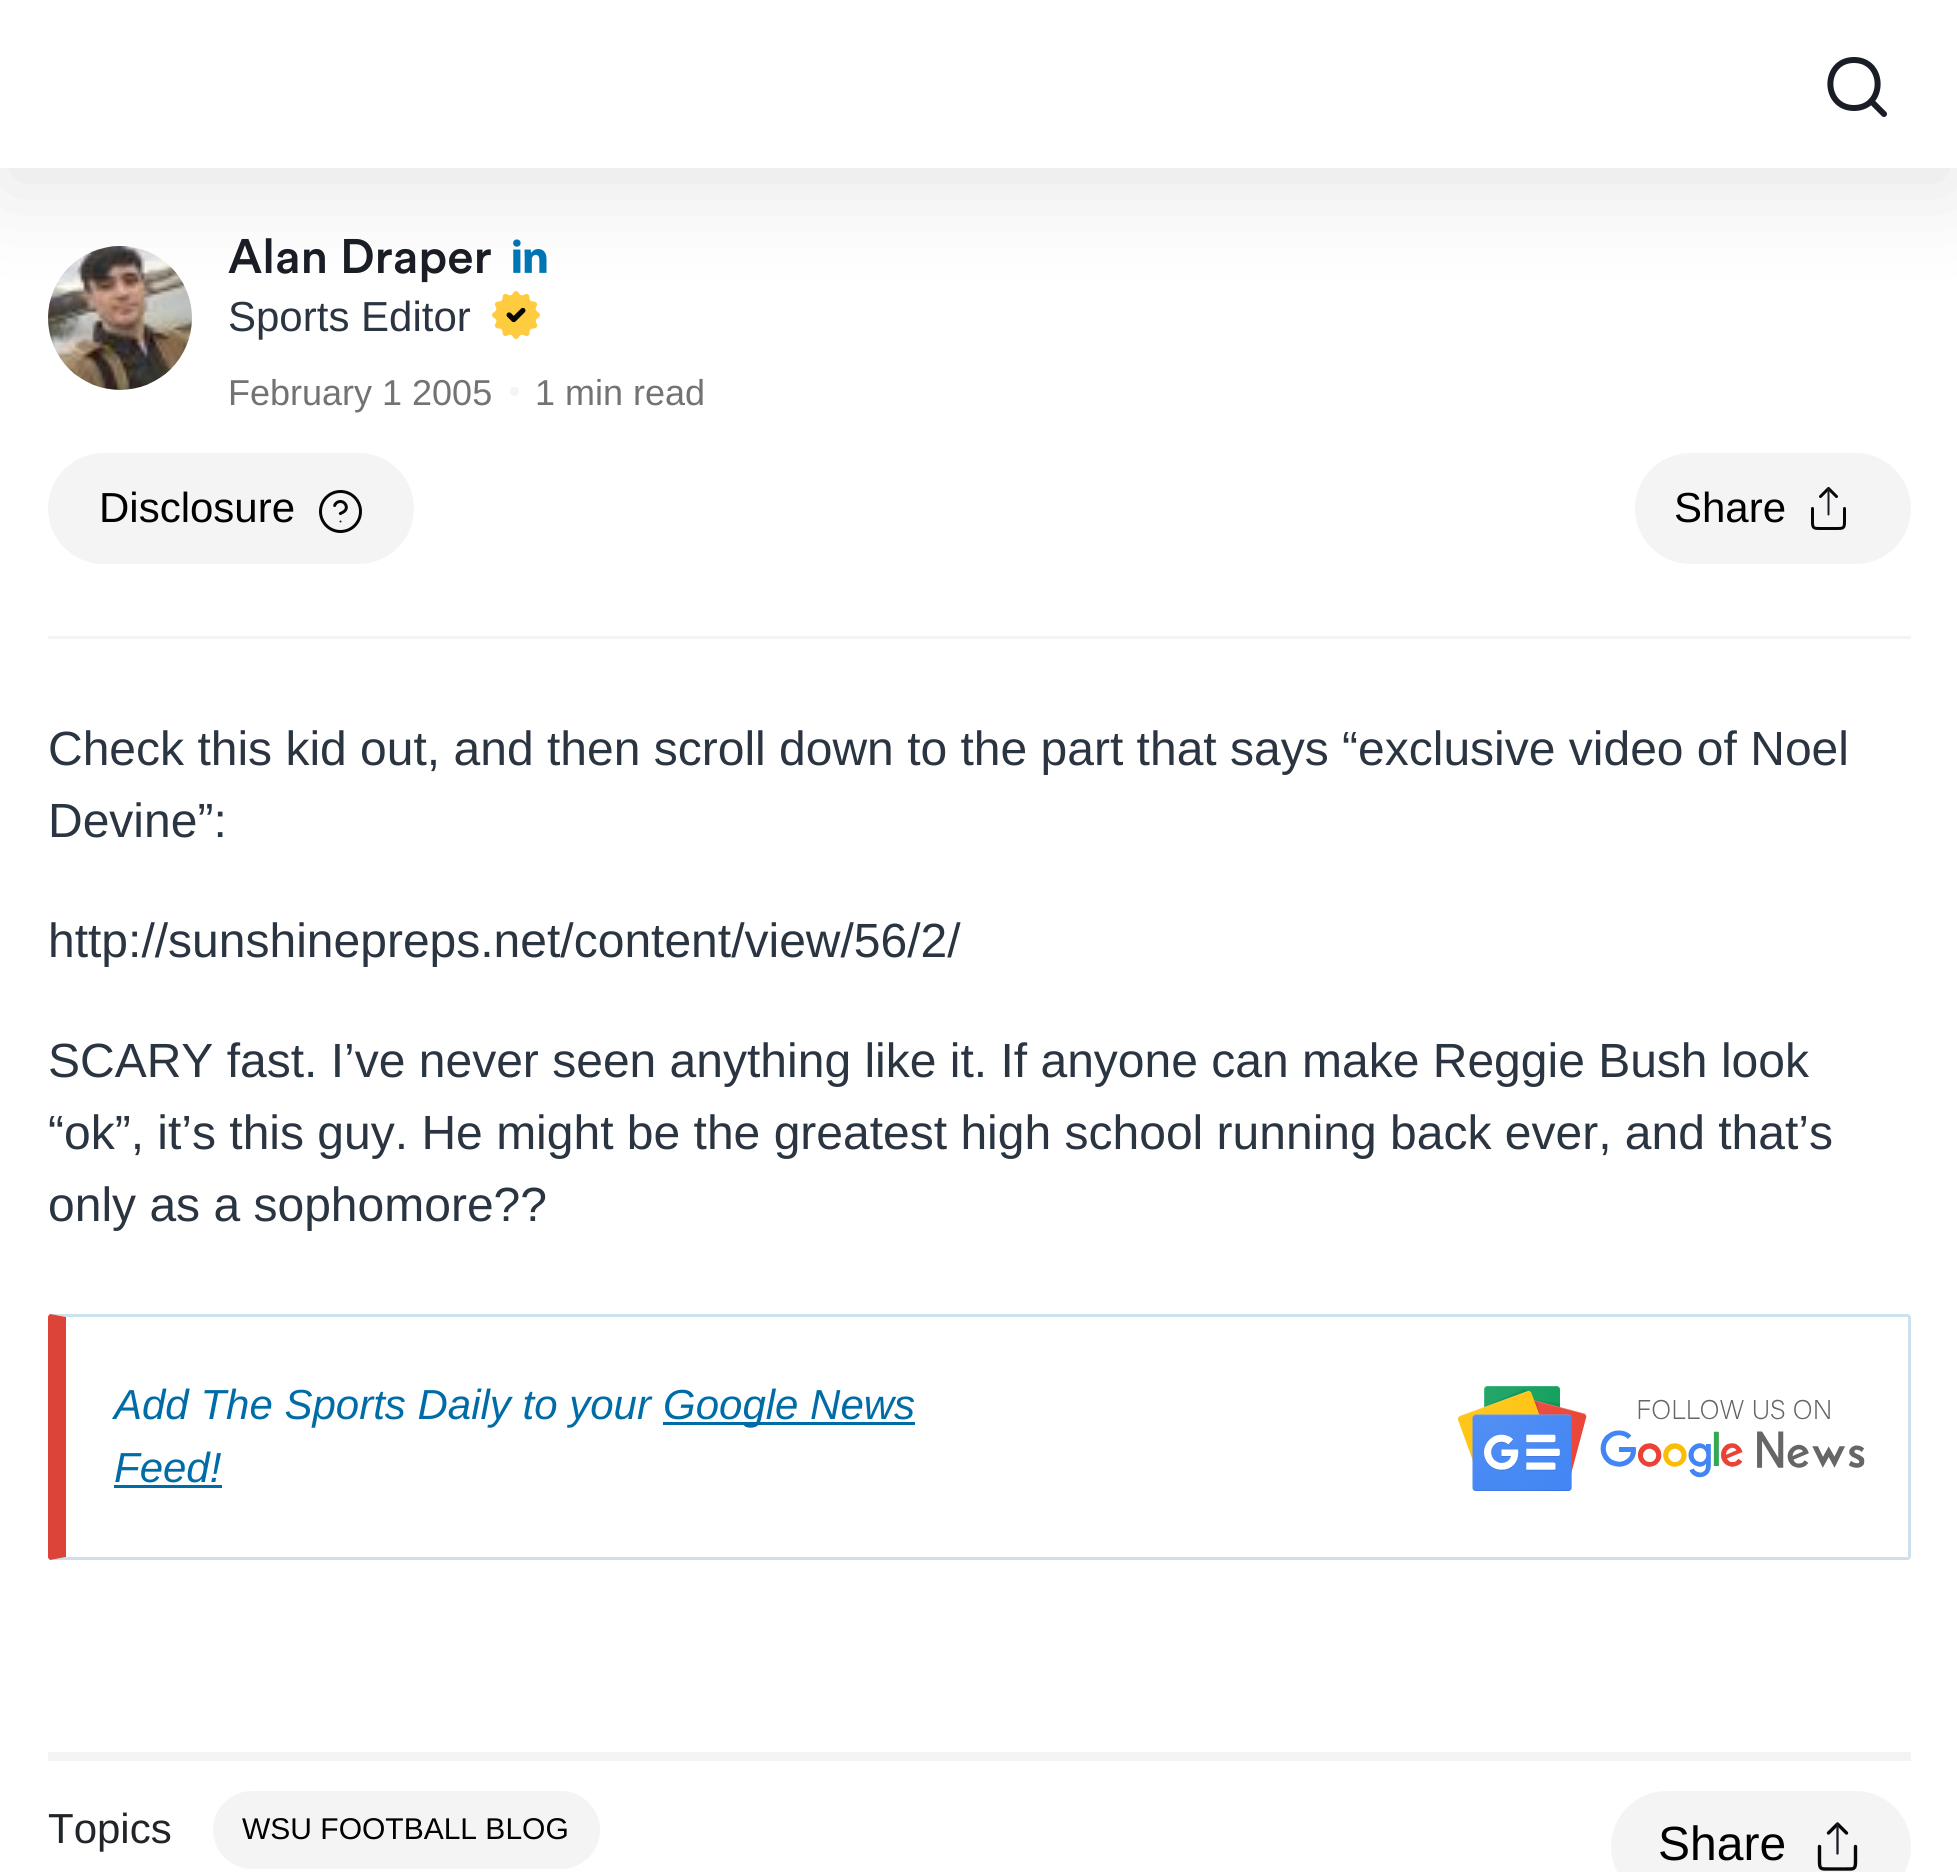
import math
import cairo

surface = cairo.ImageSurface(cairo.FORMAT_RGB24, 1957, 1872)
cr = cairo.Context(surface)
options = cairo.FontOptions()
options.set_hint_metrics(cairo.HINT_METRICS_OFF)
options.set_hint_style(cairo.HINT_STYLE_NONE)
cr.set_font_options(options)
cr.set_miter_limit(4)


def rgb(code):
    cr.set_source_rgb(*(v / 255 for v in bytes.fromhex(code[-6:])))


def rrect(x, y, w, h, r):
    cr.new_sub_path()
    for i, (u, v) in enumerate([(x + w - r, y + h - r), (x + r, y + h - r), (x + r, y + r), (x + w - r, y + r)]):
        cr.arc(u, v, r, i * math.pi / 2, (i + 1) * math.pi / 2)
    cr.close_path()


def soft_shadow(x, y, w, h, r, blur, alpha):
    cr.push_group_with_content(cairo.CONTENT_ALPHA)
    cr.set_operator(cairo.OPERATOR_SOURCE)
    for i in range(15, -16, -2):
        e = blur * i / 6
        if min(w, h) + 2 * e > 0:
            cr.set_source_rgba(0, 0, 0, alpha * math.erfc((i - 1) / 8.5) / 2)
            rrect(x - e, y - e, w + 2 * e, h + 2 * e, max(0, min(r + e + blur * .6, min(w, h) / 2 + e)))
            cr.fill()
    cr.mask(cr.pop_group())


def image(path, x, y, w, h):
    cr.save()
    cr.set_source_surface(cairo.ImageSurface.create_from_png(path), x, y)
    cr.rectangle(x, y, w, h)
    cr.fill()
    cr.restore()


rgb("#ffffff")
cr.paint()
image("img/1.png", 48, 246, 144, 144)
image("img/2.png", 513, 239, 34, 34)
image("img/3.png", 492, 291, 48, 48)
rgb("#000000")
soft_shadow(0, 24, 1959, 168, 0, 48, 0.1)
rgb("#ffffff")
cr.rectangle(0, 0, 1957, 168)
cr.fill()
cr.new_path()
cr.move_to(1854, 108)
cr.curve_to(1885.5, 108, 1885.5, 60, 1854, 60)
cr.curve_to(1822.5, 60, 1822.5, 108, 1854, 108)
cr.close_path()
cr.move_to(1884, 114)
cr.line_to(1871, 101)
rgb("#1a1d25")
cr.set_line_width(6)
cr.set_line_cap(cairo.LINE_CAP_ROUND)
cr.set_line_join(cairo.LINE_JOIN_ROUND)
cr.stroke()
rgb("#f4f4f4")
cr.rectangle(48, 636, 1863, 3)
cr.fill()
cr.arc(514.5, 391.5, 4.5, 0, 2 * math.pi)
cr.fill()
rrect(49.5, 454.5, 363, 108, 54)
cr.fill_preserve()
cr.set_line_width(3)
cr.set_line_cap(cairo.LINE_CAP_BUTT)
cr.set_line_join(cairo.LINE_JOIN_MITER)
cr.stroke()
image("img/4.png", 319, 490, 43, 43)
rrect(1636.5, 454.5, 273, 108, 54)
cr.fill_preserve()
cr.stroke()
cr.new_path()
cr.move_to(1812.5, 508.5)
cr.line_to(1812.5, 522)
cr.curve_to(1812.5, 528.5, 1814, 528.5, 1820.5, 528.5)
cr.line_to(1836.5, 528.5)
cr.curve_to(1843, 528.5, 1844.5, 528.5, 1844.5, 522)
cr.line_to(1844.5, 508.5)
cr.move_to(1836.5, 496.5)
cr.line_to(1828.5, 488.5)
cr.line_to(1820.5, 496.5)
rgb("#060606")
cr.set_line_cap(cairo.LINE_CAP_ROUND)
cr.set_line_join(cairo.LINE_JOIN_ROUND)
cr.stroke()
cr.new_path()
cr.move_to(1828.5, 488.5)
cr.line_to(1828.5, 514.5)
rgb("#1a1d25")
cr.set_line_width(2)
cr.stroke()
image("img/5.png", 1458, 1386, 407, 105)
rgb("#cce2ed")
cr.new_path()
cr.move_to(51, 1314)
cr.line_to(50, 1314)
cr.line_to(66, 1317)
cr.line_to(1908, 1317)
cr.line_to(1910, 1315)
cr.line_to(1908, 1314)
cr.close_path()
cr.fill()
cr.set_source_rgba(0, 0.424, 0.655, 0.2)
cr.new_path()
cr.move_to(1911, 1557)
cr.line_to(1911, 1317)
cr.line_to(1910, 1315)
cr.line_to(1908, 1317)
cr.line_to(1908, 1557)
cr.line_to(1910, 1559)
cr.close_path()
cr.fill()
cr.new_path()
cr.move_to(51, 1560)
cr.line_to(1908, 1560)
cr.line_to(1910, 1559)
cr.line_to(1908, 1557)
cr.line_to(66, 1557)
cr.line_to(50, 1560)
cr.close_path()
cr.fill()
rgb("#db4437")
cr.new_path()
cr.move_to(66, 1317)
cr.line_to(50, 1314)
cr.curve_to(49, 1315, 48, 1316, 48, 1317)
cr.line_to(48, 1557)
cr.curve_to(48, 1558, 49, 1559, 50, 1560)
cr.line_to(66, 1557)
cr.close_path()
cr.fill()
for x, y, w, h, color in [
    (663, 1422, 252, 3, "#006ca7"),
    (114, 1485, 108, 3, "#006ca7"),
    (48, 1752, 1863, 9, "#f4f4f4"),
]:
    rgb(color)
    cr.rectangle(x, y, w, h)
    cr.fill()
rrect(213, 1791, 387, 78, 39)
cr.fill()
rrect(1612.5, 1792.5, 297, 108, 54)
cr.fill_preserve()
cr.set_line_width(3)
cr.set_line_cap(cairo.LINE_CAP_BUTT)
cr.set_line_join(cairo.LINE_JOIN_MITER)
cr.stroke()
cr.new_path()
cr.move_to(1819.5, 1846.5)
cr.line_to(1819.5, 1861.5)
cr.curve_to(1819.5, 1869.5, 1821, 1869, 1828.5, 1869)
cr.line_to(1846.5, 1869)
cr.curve_to(1854, 1869, 1855.5, 1869.5, 1855.5, 1861.5)
cr.line_to(1855.5, 1846.5)
cr.move_to(1846.5, 1833)
cr.line_to(1837.5, 1824)
cr.line_to(1828.5, 1833)
rgb("#060606")
cr.set_line_width(3.4)
cr.set_line_cap(cairo.LINE_CAP_ROUND)
cr.set_line_join(cairo.LINE_JOIN_ROUND)
cr.stroke()
cr.new_path()
cr.move_to(1837.5, 1824)
cr.line_to(1837.5, 1853.5)
rgb("#1a1d25")
cr.set_line_width(2.3)
cr.stroke()
cr.select_font_face("Circular Medium")
cr.set_font_size(48)
cr.move_to(228, 273)
cr.show_text("Alan Draper")
cr.select_font_face("Liberation Sans")
cr.set_font_size(42)
rgb("#2a3541")
cr.move_to(228, 331)
cr.show_text("Sports Editor")
cr.set_font_size(36)
rgb("#737373")
cr.move_to(228, 405)
cr.show_text("February 1 2005")
cr.move_to(535, 405)
cr.show_text("1 min read")
cr.set_font_size(42)
rgb("#000000")
cr.move_to(99, 522)
cr.show_text("Disclosure")
cr.move_to(1674, 522)
cr.show_text("Share")
cr.set_font_size(48)
rgb("#2a3541")
for x, y, s in [
    (48, 765, "Check this kid out, and then scroll down to the part that says “exclusive video of Noel"),
    (48, 837, "Devine”:"),
    (48, 957, "http://sunshinepreps.net/content/view/56/2/"),
    (48, 1077, "SCARY fast. I’ve never seen anything like it. If anyone can make Reggie Bush look"),
    (48, 1149, "“ok”, it’s this guy. He might be the greatest high school running back ever, and that’s"),
    (48, 1221, "only as a sophomore??"),
]:
    cr.move_to(x, y)
    cr.show_text(s)
cr.select_font_face("Liberation Sans", cairo.FONT_SLANT_ITALIC)
cr.set_font_size(42)
rgb("#006ca7")
for x, y, s in [
    (114, 1419, "Add The Sports Daily to your"),
    (663, 1419, "Google News"),
    (114, 1482, "Feed!"),
]:
    cr.move_to(x, y)
    cr.show_text(s)
cr.select_font_face("Liberation Sans")
rgb("#212529")
cr.move_to(48, 1843)
cr.show_text("Topics")
cr.set_font_size(30)
rgb("#000000")
cr.move_to(242, 1839)
cr.show_text("WSU FOOTBALL BLOG")
cr.set_font_size(48)
cr.move_to(1658, 1860)
cr.show_text("Share")
surface.write_to_png("page.png")
